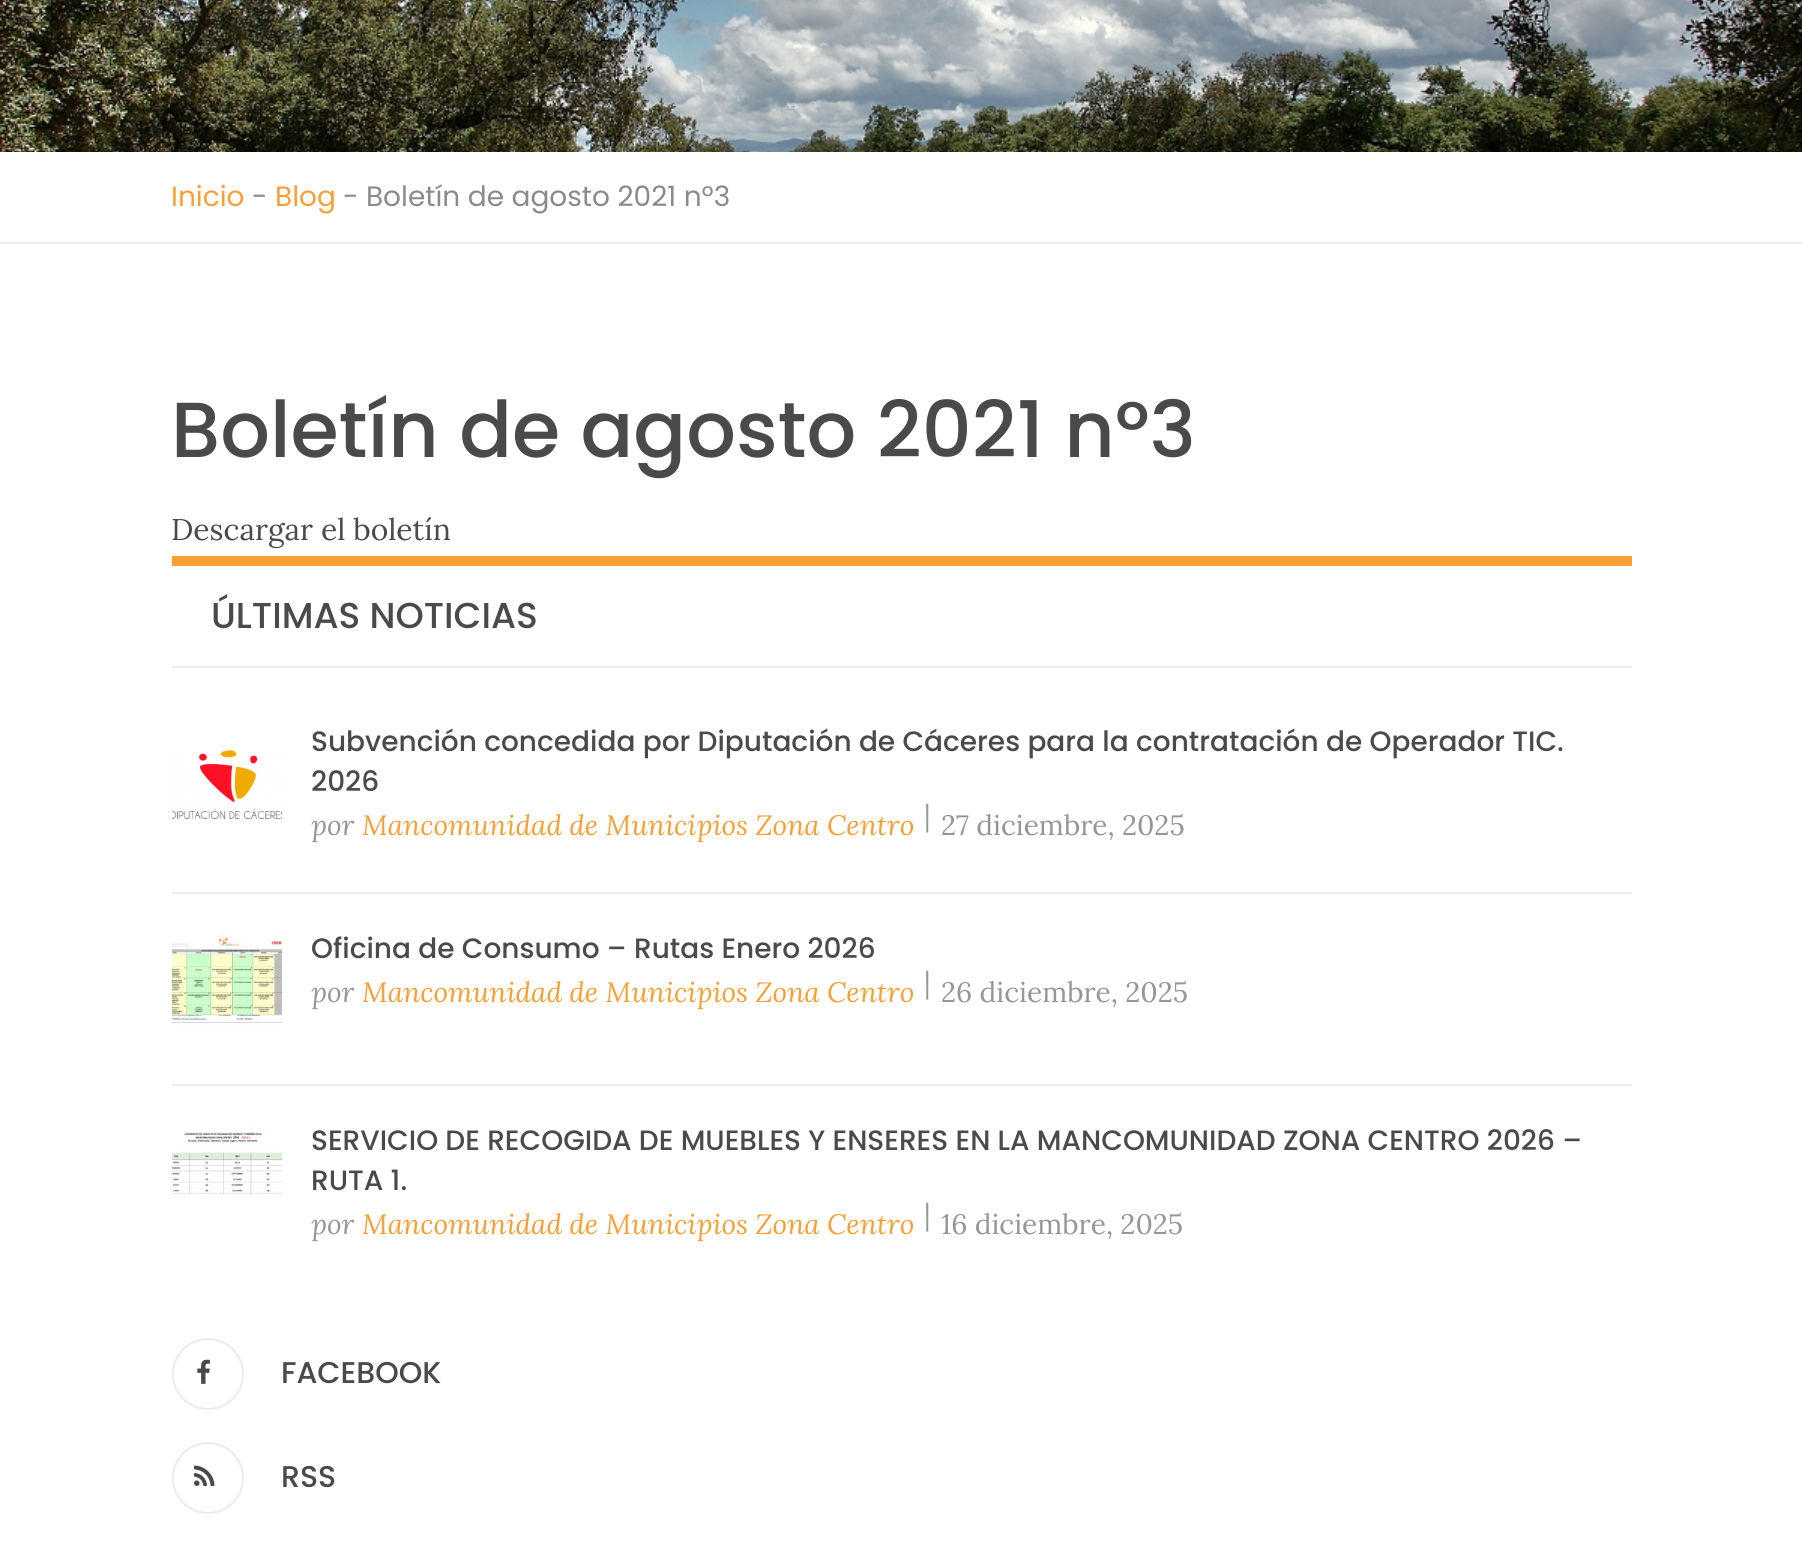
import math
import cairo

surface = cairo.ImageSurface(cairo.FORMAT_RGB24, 1802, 1555)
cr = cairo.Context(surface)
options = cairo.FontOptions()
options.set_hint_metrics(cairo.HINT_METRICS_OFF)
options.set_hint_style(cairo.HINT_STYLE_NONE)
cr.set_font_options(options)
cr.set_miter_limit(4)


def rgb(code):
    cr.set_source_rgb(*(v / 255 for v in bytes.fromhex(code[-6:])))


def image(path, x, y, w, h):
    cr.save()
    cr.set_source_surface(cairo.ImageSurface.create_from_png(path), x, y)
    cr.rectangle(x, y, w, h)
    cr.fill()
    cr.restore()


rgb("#ffffff")
cr.paint()
image("img/1.png", 0, 0, 1802, 152)
for x, y, w, h, color in [
    (0, 242, 1802, 2, "#ebebeb"),
    (172, 556, 1460, 10, "#f99f36"),
    (172, 666, 1460, 2, "#ebebeb"),
]:
    rgb(color)
    cr.rectangle(x, y, w, h)
    cr.fill()
image("img/2.png", 172, 750, 110, 70)
cr.rectangle(172, 892, 1460, 2)
cr.fill()
image("img/3.png", 172, 934, 110, 91)
cr.rectangle(172, 1084, 1460, 2)
cr.fill()
image("img/4.png", 172, 1126, 110, 70)
cr.arc(208, 1374, 35, 0, 2 * math.pi)
cr.stroke()
image("img/5.png", 197, 1359, 13, 25)
cr.arc(208, 1478, 35, 0, 2 * math.pi)
cr.stroke()
image("img/6.png", 194, 1465, 21, 21)
cr.select_font_face("Poppins")
cr.set_font_size(28)
rgb("#f99f36")
cr.move_to(171, 206)
cr.show_text("Inicio")
rgb("#8a8a8a")
cr.move_to(252, 206)
cr.show_text("-")
rgb("#f99f36")
cr.move_to(275, 206)
cr.show_text("Blog")
rgb("#8a8a8a")
cr.move_to(343, 206)
cr.show_text("- Boletín de agosto 2021 nº3")
cr.select_font_face("Poppins Medium")
cr.set_font_size(78)
rgb("#4a4a4a")
cr.move_to(171, 457)
cr.show_text("Boletín de agosto 2021 nº3")
cr.select_font_face("Lora")
cr.set_font_size(30)
cr.move_to(171, 540)
cr.show_text("Descargar el boletín")
cr.select_font_face("Poppins Medium")
cr.set_font_size(36)
cr.move_to(211, 628)
cr.show_text("ÚLTIMAS NOTICIAS")
cr.set_font_size(28)
cr.move_to(311, 751)
cr.show_text("Subvención concedida por Diputación de Cáceres para la contratación de Operador TIC.")
cr.move_to(311, 791)
cr.show_text("2026")
cr.select_font_face("Lora", cairo.FONT_SLANT_ITALIC)
rgb("#979696")
cr.move_to(311, 835)
cr.show_text("por")
rgb("#f99f36")
cr.move_to(362, 835)
cr.show_text("Mancomunidad de Municipios Zona Centro")
cr.select_font_face("Lora")
rgb("#979696")
cr.move_to(924, 825)
cr.show_text("|")
cr.move_to(941, 835)
cr.show_text("27 diciembre, 2025")
cr.select_font_face("Poppins Medium")
rgb("#4a4a4a")
cr.move_to(311, 958)
cr.show_text("Oficina de Consumo – Rutas Enero 2026")
cr.select_font_face("Lora", cairo.FONT_SLANT_ITALIC)
rgb("#979696")
cr.move_to(311, 1002)
cr.show_text("por")
rgb("#f99f36")
cr.move_to(362, 1002)
cr.show_text("Mancomunidad de Municipios Zona Centro")
cr.select_font_face("Lora")
rgb("#979696")
cr.move_to(924, 992)
cr.show_text("|")
cr.move_to(941, 1002)
cr.show_text("26 diciembre, 2025")
cr.select_font_face("Poppins Medium")
rgb("#4a4a4a")
cr.move_to(311, 1150)
cr.show_text("SERVICIO DE RECOGIDA DE MUEBLES Y ENSERES EN LA MANCOMUNIDAD ZONA CENTRO 2026 –")
cr.move_to(311, 1190)
cr.show_text("RUTA 1.")
cr.select_font_face("Lora", cairo.FONT_SLANT_ITALIC)
rgb("#979696")
cr.move_to(311, 1234)
cr.show_text("por")
rgb("#f99f36")
cr.move_to(362, 1234)
cr.show_text("Mancomunidad de Municipios Zona Centro")
cr.select_font_face("Lora")
rgb("#979696")
cr.move_to(924, 1224)
cr.show_text("|")
cr.move_to(941, 1234)
cr.show_text("16 diciembre, 2025")
cr.select_font_face("Poppins Medium")
cr.set_font_size(30)
rgb("#4a4a4a")
cr.move_to(281, 1383)
cr.show_text("FACEBOOK")
cr.move_to(281, 1487)
cr.show_text("RSS")
surface.write_to_png("page.png")
